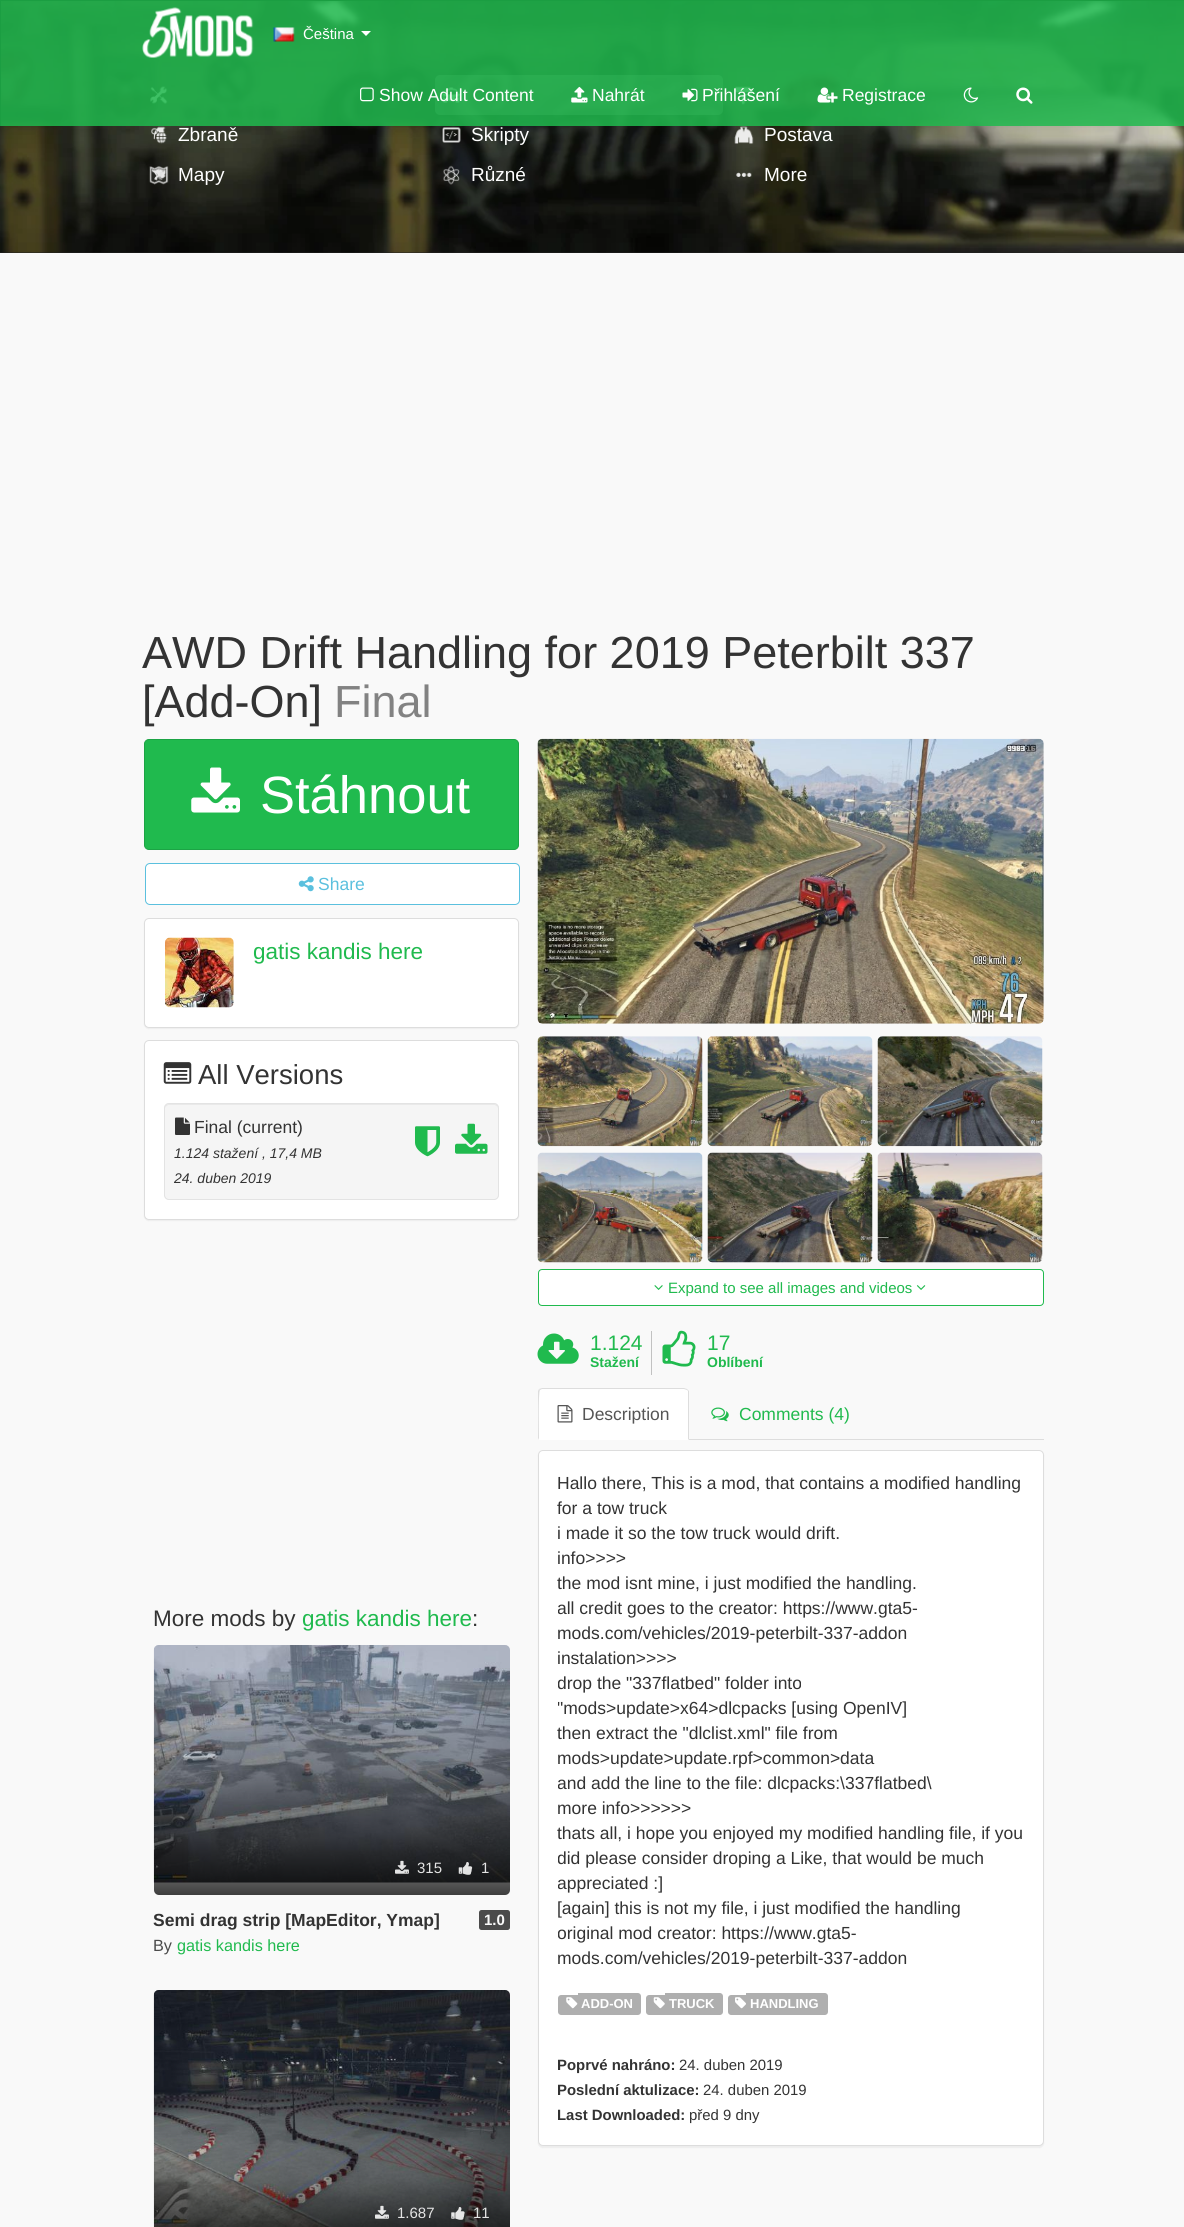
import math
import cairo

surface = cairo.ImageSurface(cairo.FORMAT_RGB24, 1184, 2227)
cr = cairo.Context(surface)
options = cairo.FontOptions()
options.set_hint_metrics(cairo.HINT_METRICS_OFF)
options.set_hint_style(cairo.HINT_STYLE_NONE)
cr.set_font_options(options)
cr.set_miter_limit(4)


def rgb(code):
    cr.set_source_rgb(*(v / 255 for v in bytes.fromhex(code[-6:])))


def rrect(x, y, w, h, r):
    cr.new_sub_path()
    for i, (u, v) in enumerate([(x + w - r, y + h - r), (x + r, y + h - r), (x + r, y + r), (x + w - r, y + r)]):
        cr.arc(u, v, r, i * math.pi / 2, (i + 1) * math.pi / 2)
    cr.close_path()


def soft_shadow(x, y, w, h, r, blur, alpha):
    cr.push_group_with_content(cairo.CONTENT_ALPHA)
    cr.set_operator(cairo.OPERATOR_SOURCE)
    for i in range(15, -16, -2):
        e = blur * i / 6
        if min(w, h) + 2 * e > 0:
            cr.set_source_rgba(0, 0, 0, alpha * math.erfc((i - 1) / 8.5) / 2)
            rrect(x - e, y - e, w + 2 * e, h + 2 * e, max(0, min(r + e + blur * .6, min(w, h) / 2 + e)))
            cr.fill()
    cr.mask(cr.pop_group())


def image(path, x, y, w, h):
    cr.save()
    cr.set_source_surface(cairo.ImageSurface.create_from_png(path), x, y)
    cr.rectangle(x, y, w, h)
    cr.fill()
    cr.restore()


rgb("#f9f9f9")
cr.paint()
rgb("#222222")
cr.rectangle(0, 252, 1184, 1)
cr.fill()
image("img/9.png", 0, 1, 1184, 252)
image("img/10.png", 150, 86, 18, 18)
cr.set_source_rgba(1, 1, 1, 0.25)
rrect(435, 75, 288, 40, 5)
cr.fill()
image("img/11.png", 442, 87, 19, 16)
image("img/12.png", 735, 86, 18, 19)
cr.set_source_rgba(0.125, 0.729, 0.306, 0.85)
cr.rectangle(1, 1, 1183, 125)
cr.fill()
rgb("#1b9e42")
cr.rectangle(0, 0, 1184, 1)
cr.rectangle(0, 0, 1, 126)
cr.fill()
image("img/1.png", 142, 7, 112, 51)
image("img/2.png", 273, 27, 22, 15)
rgb("#ffffff")
cr.new_path()
cr.move_to(361, 31)
cr.line_to(371, 31)
cr.line_to(366, 36)
cr.close_path()
cr.fill()
image("img/3.png", 360, 87, 14, 15)
image("img/4.png", 571, 86, 17, 17)
image("img/5.png", 682, 88, 16, 14)
image("img/6.png", 817, 87, 21, 16)
image("img/7.png", 963, 87, 16, 16)
image("img/8.png", 1016, 87, 17, 17)
image("img/13.png", 151, 126, 16, 18)
image("img/14.png", 442, 127, 19, 16)
image("img/15.png", 734, 126, 20, 18)
image("img/16.png", 149, 166, 20, 19)
image("img/17.png", 443, 165, 17, 20)
image("img/18.png", 736, 172, 16, 5)
rgb("#20ba4e")
rrect(144.5, 739.5, 374, 110, 4.5)
cr.fill_preserve()
rgb("#1ca445")
cr.set_line_width(1)
cr.stroke()
image("img/19.png", 191, 767, 49, 46)
rgb("#ffffff")
rrect(145.5, 863.5, 374, 41, 4.5)
cr.fill_preserve()
rgb("#5bc0de")
cr.stroke()
image("img/20.png", 298, 876, 16, 16)
rgb("#000000")
soft_shadow(144, 919, 375, 110, 5, 0.5, 0.05)
rgb("#ffffff")
rrect(144.5, 918.5, 374, 109, 4.5)
cr.fill_preserve()
rgb("#dddddd")
cr.stroke()
image("img/21.png", 165, 937, 69, 71)
rgb("#000000")
soft_shadow(144, 1041, 375, 180, 5, 0.5, 0.05)
rgb("#ffffff")
rrect(144.5, 1040.5, 374, 179, 4.5)
cr.fill_preserve()
rgb("#dddddd")
cr.stroke()
image("img/22.png", 163, 1062, 29, 22)
rgb("#f5f5f5")
rrect(164, 1103, 335, 97, 5)
cr.fill()
rgb("#e9e9e9")
cr.new_path()
cr.move_to(169, 1105)
cr.line_to(494, 1105)
cr.curve_to(496, 1105, 498, 1107, 498, 1109)
cr.curve_to(498, 1106, 497, 1104, 494, 1104)
cr.line_to(169, 1104)
cr.curve_to(166, 1104, 165, 1106, 165, 1109)
cr.curve_to(165, 1107, 167, 1105, 169, 1105)
cr.close_path()
cr.fill()
rrect(164.5, 1103.5, 334, 96, 4.5)
rgb("#e3e3e3")
cr.stroke()
image("img/23.png", 175, 1117, 15, 18)
image("img/24.png", 415, 1126, 25, 31)
image("img/25.png", 455, 1123, 33, 31)
image("img/26.png", 153, 1645, 357, 238)
gradient = cairo.LinearGradient(332, 1645, 332, 1895)
gradient.add_color_stop_rgba(0.5, 0, 0, 0, 0)
gradient.add_color_stop_rgba(0.75, 0, 0, 0, 0.25)
gradient.add_color_stop_rgba(1, 0, 0, 0, 0.75)
cr.set_source(gradient)
rrect(154, 1645, 356, 250, 5)
cr.fill()
image("img/27.png", 395, 1860, 14, 14)
image("img/28.png", 458, 1862, 15, 13)
rgb("#4b4b4b")
rrect(479, 1910, 31, 20, 2.5)
cr.fill()
image("img/29.png", 153, 1990, 357, 237)
gradient = cairo.LinearGradient(332, 1990, 332, 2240)
gradient.add_color_stop_rgba(0.5, 0, 0, 0, 0)
gradient.add_color_stop_rgba(0.75, 0, 0, 0, 0.25)
gradient.add_color_stop_rgba(1, 0, 0, 0, 0.75)
cr.set_source(gradient)
cr.rectangle(154, 2120, 356, 107)
cr.fill()
image("img/30.png", 375, 2205, 14, 14)
image("img/31.png", 451, 2207, 14, 13)
image("img/32.png", 537, 738, 507, 286)
image("img/33.png", 537, 1036, 166, 111)
image("img/34.png", 707, 1036, 166, 111)
image("img/35.png", 877, 1036, 166, 111)
image("img/36.png", 537, 1152, 166, 111)
image("img/37.png", 707, 1152, 166, 111)
image("img/38.png", 877, 1152, 166, 111)
rgb("#ffffff")
rrect(538.5, 1269.5, 505, 36, 3.5)
cr.fill_preserve()
rgb("#20ba4e")
cr.stroke()
image("img/39.png", 654, 1285, 9, 5)
image("img/40.png", 916, 1285, 10, 5)
image("img/41.png", 537, 1333, 42, 31)
rgb("#c2c2c2")
cr.rectangle(651, 1331, 1, 44)
cr.fill()
image("img/42.png", 662, 1330, 34, 37)
rgb("#dddddd")
cr.rectangle(689, 1439, 355, 1)
cr.fill()
rgb("#ffffff")
cr.new_path()
cr.move_to(543, 1388)
cr.line_to(684, 1388)
cr.curve_to(687, 1388, 689, 1390, 689, 1393)
cr.line_to(689, 1440)
cr.line_to(538, 1440)
cr.line_to(538, 1393)
cr.curve_to(538, 1390, 540, 1388, 543, 1388)
cr.close_path()
cr.fill()
rgb("#dddddd")
cr.new_path()
cr.move_to(542, 1388)
cr.line_to(539, 1389)
cr.line_to(540, 1390)
cr.line_to(542, 1389)
cr.line_to(684, 1389)
cr.line_to(687, 1390)
cr.line_to(687, 1389)
cr.line_to(684, 1388)
cr.close_path()
cr.fill()
cr.new_path()
cr.move_to(687, 1389)
cr.line_to(689, 1391)
cr.line_to(689, 1440)
cr.line_to(688, 1439)
cr.line_to(688, 1391)
cr.line_to(687, 1390)
cr.close_path()
cr.fill()
cr.new_path()
cr.move_to(539, 1389)
cr.line_to(538, 1391)
cr.line_to(538, 1440)
cr.line_to(539, 1438)
cr.curve_to(539, 1433, 538, 1392, 540, 1390)
cr.close_path()
cr.fill()
image("img/43.png", 557, 1405, 16, 18)
image("img/44.png", 711, 1407, 18, 15)
rgb("#000000")
soft_shadow(538, 1451, 506, 697, 5, 0.5, 0.05)
rgb("#ffffff")
rrect(538.5, 1450.5, 505, 695, 4.5)
cr.fill_preserve()
rgb("#dddddd")
cr.stroke()
rgb("#afafaf")
cr.new_path()
cr.move_to(561, 1995)
cr.line_to(578, 1995)
cr.line_to(578, 2015)
cr.line_to(561, 2015)
cr.curve_to(559.5, 2015, 558, 2013.5, 558, 2012)
cr.line_to(558, 1998)
cr.curve_to(558, 1996.5, 559.5, 1995, 561, 1995)
cr.close_path()
cr.fill()
cr.new_path()
cr.move_to(578, 1993)
cr.line_to(638, 1993)
cr.curve_to(639.5, 1993, 641, 1994.5, 641, 1996)
cr.line_to(641, 2012)
cr.curve_to(641, 2013.5, 639.5, 2015, 638, 2015)
cr.line_to(578, 2015)
cr.close_path()
cr.fill()
image("img/45.png", 566, 1997, 12, 12)
cr.new_path()
cr.move_to(649, 1995)
cr.line_to(665, 1995)
cr.line_to(665, 2015)
cr.line_to(649, 2015)
cr.curve_to(647.5, 2015, 646, 2013.5, 646, 2012)
cr.line_to(646, 1998)
cr.curve_to(646, 1996.5, 647.5, 1995, 649, 1995)
cr.close_path()
cr.fill()
cr.new_path()
cr.move_to(665, 1993)
cr.line_to(720, 1993)
cr.curve_to(721.5, 1993, 723, 1994.5, 723, 1996)
cr.line_to(723, 2012)
cr.curve_to(723, 2013.5, 721.5, 2015, 720, 2015)
cr.line_to(665, 2015)
cr.close_path()
cr.fill()
image("img/46.png", 653, 1997, 12, 12)
cr.new_path()
cr.move_to(731, 1995)
cr.line_to(746, 1995)
cr.line_to(746, 2015)
cr.line_to(731, 2015)
cr.curve_to(729.5, 2015, 728, 2013.5, 728, 2012)
cr.line_to(728, 1998)
cr.curve_to(728, 1996.5, 729.5, 1995, 731, 1995)
cr.close_path()
cr.fill()
cr.new_path()
cr.move_to(746, 1993)
cr.line_to(825, 1993)
cr.curve_to(826.5, 1993, 828, 1994.5, 828, 1996)
cr.line_to(828, 2012)
cr.curve_to(828, 2013.5, 826.5, 2015, 825, 2015)
cr.line_to(746, 2015)
cr.close_path()
cr.fill()
image("img/47.png", 735, 1997, 11, 12)
cr.select_font_face("Liberation Sans")
cr.set_font_size(15)
rgb("#ffffff")
cr.move_to(303, 39)
cr.show_text("Čeština")
cr.set_font_size(17.5)
for x, y, s in [
    (379, 101, "Show Adult Content"),
    (592, 101, "Nahrát"),
    (702, 101, "Přihlášení"),
    (842, 101, "Registrace"),
]:
    cr.move_to(x, y)
    cr.show_text(s)
cr.set_font_size(19)
for x, y, s in [
    (178, 141, "Zbraně"),
    (471, 141, "Skripty"),
    (764, 141, "Postava"),
    (178, 181, "Mapy"),
    (471, 181, "Různé"),
    (764, 181, "More"),
]:
    cr.move_to(x, y)
    cr.show_text(s)
cr.set_font_size(45)
rgb("#333333")
cr.move_to(142, 668)
cr.show_text("AWD Drift Handling for 2019 Peterbilt 337")
cr.move_to(142, 717)
cr.show_text("[Add-On]")
rgb("#828282")
cr.move_to(334, 717)
cr.show_text("Final")
cr.set_font_size(52.5)
rgb("#ffffff")
cr.move_to(260, 813)
cr.show_text("Stáhnout")
cr.set_font_size(17.5)
rgb("#5bc0de")
cr.move_to(318, 890)
cr.show_text("Share")
cr.set_font_size(22.5)
rgb("#20ba4e")
cr.move_to(253, 959)
cr.show_text("gatis kandis here")
cr.set_font_size(27.5)
rgb("#333333")
cr.move_to(198, 1084)
cr.show_text("All Versions")
cr.set_font_size(17.5)
cr.move_to(194, 1133)
cr.show_text("Final (current)")
cr.select_font_face("Liberation Sans", cairo.FONT_SLANT_ITALIC)
cr.set_font_size(14)
cr.move_to(174, 1158)
cr.show_text("1.124 stažení , 17,4 MB")
cr.move_to(174, 1183)
cr.show_text("24. duben 2019")
cr.select_font_face("Liberation Sans")
cr.set_font_size(22.5)
cr.move_to(153, 1626)
cr.show_text("More mods by")
rgb("#20ba4e")
cr.move_to(302, 1626)
cr.show_text("gatis kandis here")
rgb("#333333")
cr.move_to(472, 1626)
cr.show_text(":")
cr.set_font_size(15)
rgb("#e4e4e4")
cr.move_to(417, 1873)
cr.show_text("315")
cr.move_to(481, 1873)
cr.show_text("1")
cr.select_font_face("Liberation Sans", cairo.FONT_SLANT_NORMAL, cairo.FONT_WEIGHT_BOLD)
cr.set_font_size(17.5)
rgb("#333333")
cr.move_to(153, 1926)
cr.show_text("Semi drag strip [MapEditor, Ymap]")
cr.set_font_size(15)
rgb("#f9f9f9")
cr.move_to(484, 1925)
cr.show_text("1.0")
cr.select_font_face("Liberation Sans")
cr.set_font_size(16.25)
rgb("#4b4b4b")
cr.move_to(153, 1951)
cr.show_text("By")
rgb("#20ba4e")
cr.move_to(177, 1951)
cr.show_text("gatis kandis here")
cr.set_font_size(15)
rgb("#e4e4e4")
cr.move_to(397, 2218)
cr.show_text("1.687")
cr.move_to(473, 2218)
cr.show_text("11")
rgb("#20ba4e")
cr.move_to(668, 1293)
cr.show_text("Expand to see all images and videos")
cr.set_font_size(21)
cr.move_to(590, 1350)
cr.show_text("1.124")
cr.select_font_face("Liberation Sans", cairo.FONT_SLANT_NORMAL, cairo.FONT_WEIGHT_BOLD)
cr.set_font_size(14)
cr.move_to(590, 1367)
cr.show_text("Stažení")
cr.select_font_face("Liberation Sans")
cr.set_font_size(21)
cr.move_to(707, 1350)
cr.show_text("17")
cr.select_font_face("Liberation Sans", cairo.FONT_SLANT_NORMAL, cairo.FONT_WEIGHT_BOLD)
cr.set_font_size(14)
cr.move_to(707, 1367)
cr.show_text("Oblíbení")
cr.select_font_face("Liberation Sans")
cr.set_font_size(17.5)
rgb("#555555")
cr.move_to(582, 1420)
cr.show_text("Description")
rgb("#20ba4e")
cr.move_to(739, 1420)
cr.show_text("Comments (4)")
rgb("#333333")
for x, y, s in [
    (557, 1489, "Hallo there, This is a mod, that contains a modified handling"),
    (557, 1514, "for a tow truck"),
    (557, 1539, "i made it so the tow truck would drift."),
    (557, 1564, "info>>>>"),
    (557, 1589, "the mod isnt mine, i just modified the handling."),
]:
    cr.move_to(x, y)
    cr.show_text(s)
cr.save()
cr.rectangle(558, 1470, 466, 500)
cr.clip()
cr.move_to(557, 1614)
cr.show_text("all credit goes to the creator: https://www.gta5-")
cr.restore()
cr.move_to(557, 1639)
cr.show_text("mods.com/vehicles/2019-peterbilt-337-addon")
cr.move_to(557, 1664)
cr.show_text("instalation>>>>")
cr.save()
cr.rectangle(558, 1470, 466, 500)
cr.clip()
cr.move_to(557, 1689)
cr.show_text("drop the \"337flatbed\" folder into")
cr.move_to(557, 1714)
cr.show_text("\"mods>update>x64>dlcpacks [using OpenIV]")
cr.restore()
cr.move_to(557, 1739)
cr.show_text("then extract the \"dlclist.xml\" file from")
cr.move_to(557, 1764)
cr.show_text("mods>update>update.rpf>common>data")
cr.save()
cr.rectangle(558, 1470, 466, 500)
cr.clip()
cr.move_to(557, 1789)
cr.show_text("and add the line to the file: dlcpacks:\\337flatbed\\")
cr.restore()
cr.move_to(557, 1814)
cr.show_text("more info>>>>>>")
cr.move_to(557, 1839)
cr.show_text("thats all, i hope you enjoyed my modified handling file, if you")
cr.save()
cr.rectangle(558, 1470, 466, 500)
cr.clip()
cr.move_to(557, 1864)
cr.show_text("did please consider droping a Like, that would be much")
cr.move_to(557, 1889)
cr.show_text("appreciated :]")
cr.restore()
cr.move_to(557, 1914)
cr.show_text("[again] this is not my file, i just modified the handling")
cr.save()
cr.rectangle(558, 1470, 466, 500)
cr.clip()
cr.move_to(557, 1939)
cr.show_text("original mod creator: https://www.gta5-")
cr.restore()
cr.move_to(557, 1964)
cr.show_text("mods.com/vehicles/2019-peterbilt-337-addon")
cr.select_font_face("Liberation Sans", cairo.FONT_SLANT_NORMAL, cairo.FONT_WEIGHT_BOLD)
cr.set_font_size(13)
rgb("#ffffff")
for x, y, s in [
    (581, 2008, "ADD-ON"),
    (669, 2008, "TRUCK"),
    (750, 2008, "HANDLING"),
]:
    cr.move_to(x, y)
    cr.show_text(s)
cr.set_font_size(14.9)
rgb("#333333")
cr.move_to(557, 2070)
cr.show_text("Poprvé nahráno:")
cr.select_font_face("Liberation Sans")
cr.move_to(679, 2070)
cr.show_text("24. duben 2019")
cr.select_font_face("Liberation Sans", cairo.FONT_SLANT_NORMAL, cairo.FONT_WEIGHT_BOLD)
cr.move_to(557, 2095)
cr.show_text("Poslední aktulizace:")
cr.select_font_face("Liberation Sans")
cr.move_to(703, 2095)
cr.show_text("24. duben 2019")
cr.select_font_face("Liberation Sans", cairo.FONT_SLANT_NORMAL, cairo.FONT_WEIGHT_BOLD)
cr.move_to(557, 2120)
cr.show_text("Last Downloaded:")
cr.select_font_face("Liberation Sans")
cr.move_to(689, 2120)
cr.show_text("před 9 dny")
surface.write_to_png("page.png")
